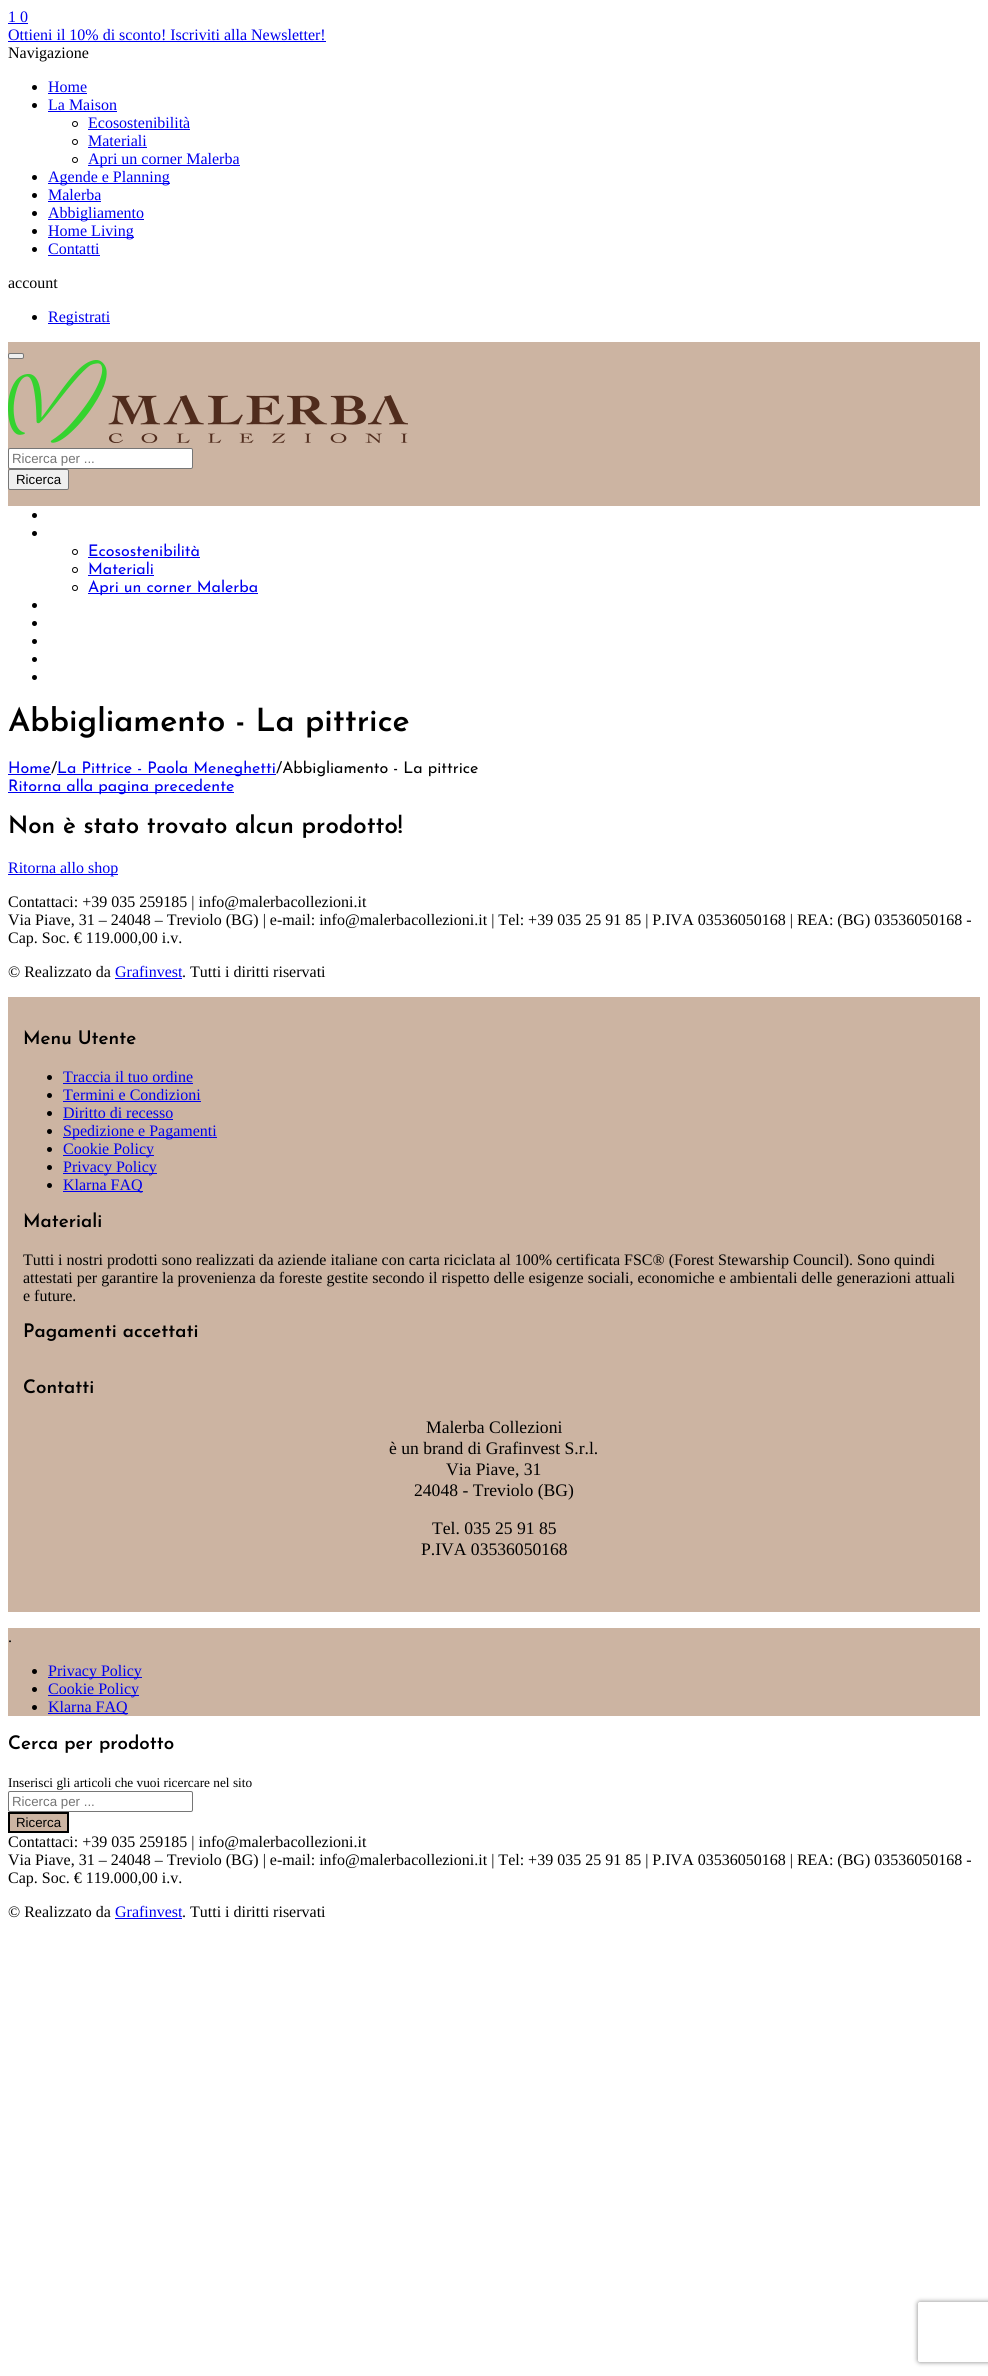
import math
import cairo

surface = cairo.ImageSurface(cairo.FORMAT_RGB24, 988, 2376)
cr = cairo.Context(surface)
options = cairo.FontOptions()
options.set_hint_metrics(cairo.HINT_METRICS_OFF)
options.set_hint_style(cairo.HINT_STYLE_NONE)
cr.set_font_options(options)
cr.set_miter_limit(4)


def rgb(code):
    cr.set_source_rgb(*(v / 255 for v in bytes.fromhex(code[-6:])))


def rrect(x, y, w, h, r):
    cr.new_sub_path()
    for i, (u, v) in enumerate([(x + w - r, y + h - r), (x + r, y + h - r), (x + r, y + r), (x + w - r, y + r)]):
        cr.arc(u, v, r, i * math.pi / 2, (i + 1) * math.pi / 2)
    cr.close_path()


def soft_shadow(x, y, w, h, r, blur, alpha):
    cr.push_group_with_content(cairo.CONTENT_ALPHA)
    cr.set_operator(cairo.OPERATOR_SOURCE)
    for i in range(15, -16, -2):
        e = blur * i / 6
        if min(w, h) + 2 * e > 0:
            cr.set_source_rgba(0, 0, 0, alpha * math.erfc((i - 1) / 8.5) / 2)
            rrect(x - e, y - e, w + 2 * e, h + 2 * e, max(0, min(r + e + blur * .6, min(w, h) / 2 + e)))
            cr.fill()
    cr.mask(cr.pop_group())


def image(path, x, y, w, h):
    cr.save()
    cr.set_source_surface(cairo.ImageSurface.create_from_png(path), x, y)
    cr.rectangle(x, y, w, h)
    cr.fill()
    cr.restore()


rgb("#ffffff")
cr.paint()
rgb("#0000ee")
cr.rectangle(8, 23, 20, 1)
cr.fill()
cr.rectangle(8, 41, 318, 1)
cr.fill()
rgb("#000000")
cr.arc(34.5, 87.5, 2.5, 0, 2 * math.pi)
cr.fill()
rgb("#0000ee")
cr.rectangle(48, 93, 39, 1)
cr.fill()
rgb("#000000")
cr.arc(34.5, 105.5, 2.5, 0, 2 * math.pi)
cr.fill()
rgb("#0000ee")
cr.rectangle(48, 111, 69, 1)
cr.fill()
cr.arc(75, 124, 2.5, 0, 2 * math.pi)
rgb("#000000")
cr.set_line_width(1)
cr.stroke()
rgb("#0000ee")
cr.rectangle(88, 129, 102, 1)
cr.fill()
cr.arc(75, 142, 2.5, 0, 2 * math.pi)
rgb("#000000")
cr.stroke()
rgb("#0000ee")
cr.rectangle(88, 147, 59, 1)
cr.fill()
cr.arc(75, 160, 2.5, 0, 2 * math.pi)
rgb("#000000")
cr.stroke()
rgb("#0000ee")
cr.rectangle(88, 165, 152, 1)
cr.fill()
rgb("#000000")
cr.arc(34.5, 177.5, 2.5, 0, 2 * math.pi)
cr.fill()
rgb("#0000ee")
cr.rectangle(48, 183, 122, 1)
cr.fill()
rgb("#000000")
cr.arc(34.5, 195.5, 2.5, 0, 2 * math.pi)
cr.fill()
rgb("#0000ee")
cr.rectangle(48, 201, 53, 1)
cr.fill()
rgb("#000000")
cr.arc(34.5, 213.5, 2.5, 0, 2 * math.pi)
cr.fill()
rgb("#0000ee")
cr.rectangle(48, 219, 96, 1)
cr.fill()
rgb("#000000")
cr.arc(34.5, 231.5, 2.5, 0, 2 * math.pi)
cr.fill()
rgb("#0000ee")
cr.rectangle(48, 237, 86, 1)
cr.fill()
rgb("#000000")
cr.arc(34.5, 249.5, 2.5, 0, 2 * math.pi)
cr.fill()
rgb("#0000ee")
cr.rectangle(48, 255, 52, 1)
cr.fill()
rgb("#000000")
cr.arc(34.5, 317.5, 2.5, 0, 2 * math.pi)
cr.fill()
rgb("#0000ee")
cr.rectangle(48, 323, 62, 1)
cr.fill()
rgb("#ccb4a2")
cr.rectangle(8, 342, 972, 164)
cr.fill()
rgb("#efefef")
rrect(8.5, 353.5, 15, 5, 1.5)
cr.fill_preserve()
rgb("#767676")
cr.stroke()
image("img/1.png", 8, 360, 400, 83)
rgb("#ffffff")
rrect(8.5, 448.5, 184, 20, 1.5)
cr.fill_preserve()
rgb("#767676")
cr.stroke()
rgb("#efefef")
rrect(8.5, 469.5, 60, 20, 1.5)
cr.fill_preserve()
rgb("#767676")
cr.stroke()
rgb("#000000")
cr.arc(34.5, 515.5, 2.5, 0, 2 * math.pi)
cr.fill()
cr.arc(34.5, 533.5, 2.5, 0, 2 * math.pi)
cr.fill()
cr.arc(75, 552, 2.5, 0, 2 * math.pi)
cr.stroke()
rgb("#0000ee")
cr.rectangle(88, 557, 112, 1)
cr.fill()
cr.arc(75, 570, 2.5, 0, 2 * math.pi)
rgb("#000000")
cr.stroke()
rgb("#0000ee")
cr.rectangle(88, 575, 66, 1)
cr.fill()
cr.arc(75, 588, 2.5, 0, 2 * math.pi)
rgb("#000000")
cr.stroke()
rgb("#0000ee")
cr.rectangle(88, 593, 170, 1)
cr.fill()
rgb("#000000")
cr.arc(34.5, 605.5, 2.5, 0, 2 * math.pi)
cr.fill()
cr.arc(34.5, 623.5, 2.5, 0, 2 * math.pi)
cr.fill()
cr.arc(34.5, 641.5, 2.5, 0, 2 * math.pi)
cr.fill()
cr.arc(34.5, 659.5, 2.5, 0, 2 * math.pi)
cr.fill()
cr.arc(34.5, 677.5, 2.5, 0, 2 * math.pi)
cr.fill()
for x, y, w, h, color in [
    (8, 774, 43, 1, "#0000ee"),
    (57, 774, 219, 1, "#0000ee"),
    (8, 792, 226, 1, "#0000ee"),
    (8, 874, 110, 1, "#0000ee"),
    (115, 978, 67, 1, "#0000ee"),
    (8, 997, 972, 615, "#ccb4a2"),
]:
    rgb(color)
    cr.rectangle(x, y, w, h)
    cr.fill()
rgb("#000000")
cr.arc(49.5, 1077.5, 2.5, 0, 2 * math.pi)
cr.fill()
rgb("#0000ee")
cr.rectangle(63, 1083, 130, 1)
cr.fill()
rgb("#000000")
cr.arc(49.5, 1095.5, 2.5, 0, 2 * math.pi)
cr.fill()
rgb("#0000ee")
cr.rectangle(63, 1101, 138, 1)
cr.fill()
rgb("#000000")
cr.arc(49.5, 1113.5, 2.5, 0, 2 * math.pi)
cr.fill()
rgb("#0000ee")
cr.rectangle(63, 1119, 110, 1)
cr.fill()
rgb("#000000")
cr.arc(49.5, 1131.5, 2.5, 0, 2 * math.pi)
cr.fill()
rgb("#0000ee")
cr.rectangle(63, 1137, 154, 1)
cr.fill()
rgb("#000000")
cr.arc(49.5, 1149.5, 2.5, 0, 2 * math.pi)
cr.fill()
rgb("#0000ee")
cr.rectangle(63, 1155, 91, 1)
cr.fill()
rgb("#000000")
cr.arc(49.5, 1167.5, 2.5, 0, 2 * math.pi)
cr.fill()
rgb("#0000ee")
cr.rectangle(63, 1173, 94, 1)
cr.fill()
rgb("#000000")
cr.arc(49.5, 1185.5, 2.5, 0, 2 * math.pi)
cr.fill()
rgb("#0000ee")
cr.rectangle(63, 1191, 80, 1)
cr.fill()
rgb("#ccb4a2")
cr.rectangle(8, 1628, 972, 88)
cr.fill()
rgb("#000000")
cr.arc(34.5, 1671.5, 2.5, 0, 2 * math.pi)
cr.fill()
rgb("#0000ee")
cr.rectangle(48, 1677, 94, 1)
cr.fill()
rgb("#000000")
cr.arc(34.5, 1689.5, 2.5, 0, 2 * math.pi)
cr.fill()
rgb("#0000ee")
cr.rectangle(48, 1695, 91, 1)
cr.fill()
rgb("#000000")
cr.arc(34.5, 1707.5, 2.5, 0, 2 * math.pi)
cr.fill()
rgb("#0000ee")
cr.rectangle(48, 1713, 80, 1)
cr.fill()
rrect(8.5, 1791.5, 184, 20, 1.5)
rgb("#767676")
cr.stroke()
rgb("#ccb4a2")
cr.rectangle(9, 1813, 59, 19)
cr.fill_preserve()
rgb("#000000")
cr.set_line_width(2)
cr.stroke()
rgb("#0000ee")
cr.rectangle(115, 1918, 67, 1)
cr.fill()
cr.save()
cr.set_fill_rule(cairo.FILL_RULE_EVEN_ODD)
cr.new_path()
cr.move_to(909, 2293)
cr.line_to(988, 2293)
cr.line_to(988, 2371)
cr.line_to(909, 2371)
cr.close_path()
cr.move_to(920, 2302)
cr.line_to(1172, 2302)
cr.curve_to(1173, 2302, 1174, 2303, 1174, 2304)
cr.line_to(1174, 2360)
cr.curve_to(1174, 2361, 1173, 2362, 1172, 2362)
cr.line_to(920, 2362)
cr.curve_to(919, 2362, 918, 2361, 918, 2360)
cr.line_to(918, 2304)
cr.curve_to(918, 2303, 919, 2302, 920, 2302)
cr.close_path()
cr.clip()
rgb("#808080")
soft_shadow(918, 2302, 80, 60, 2, 2.5, 1)
cr.restore()
cr.select_font_face("Liberation Serif")
cr.set_font_size(16)
cr.move_to(8, 22)
cr.show_text("1 0")
cr.move_to(8, 40)
cr.show_text("Ottieni il 10% di sconto! Iscriviti alla Newsletter!")
rgb("#000000")
cr.move_to(8, 58)
cr.show_text("Navigazione")
rgb("#0000ee")
for x, y, s in [
    (48, 92, "Home"),
    (48, 110, "La Maison"),
    (88, 128, "Ecosostenibilità"),
    (88, 146, "Materiali"),
    (88, 164, "Apri un corner Malerba"),
    (48, 182, "Agende e Planning"),
    (48, 200, "Malerba"),
    (48, 218, "Abbigliamento"),
    (48, 236, "Home Living"),
    (48, 254, "Contatti"),
]:
    cr.move_to(x, y)
    cr.show_text(s)
rgb("#000000")
cr.move_to(8, 288)
cr.show_text("account")
rgb("#0000ee")
cr.move_to(48, 322)
cr.show_text("Registrati")
cr.select_font_face("Liberation Sans")
cr.set_font_size(13.3)
rgb("#757575")
cr.move_to(12, 463)
cr.show_text("Ricerca per ...")
rgb("#000000")
cr.move_to(16, 484)
cr.show_text("Ricerca")
cr.select_font_face("Josefin Sans")
cr.set_font_size(16)
rgb("#0000ee")
for x, y, s in [
    (88, 556, "Ecosostenibilità"),
    (88, 574, "Materiali"),
    (88, 592, "Apri un corner Malerba"),
]:
    cr.move_to(x, y)
    cr.show_text(s)
cr.select_font_face("Josefin Sans SemiBold")
cr.set_font_size(32)
rgb("#000000")
cr.move_to(8, 731)
cr.show_text("Abbigliamento - La pittrice")
cr.select_font_face("Josefin Sans")
cr.set_font_size(16)
rgb("#0000ee")
cr.move_to(8, 773)
cr.show_text("Home")
rgb("#000000")
cr.move_to(51, 773)
cr.show_text("/")
rgb("#0000ee")
cr.move_to(57, 773)
cr.show_text("La Pittrice - Paola Meneghetti")
rgb("#000000")
cr.move_to(276, 773)
cr.show_text("/Abbigliamento - La pittrice")
rgb("#0000ee")
cr.move_to(8, 791)
cr.show_text("Ritorna alla pagina precedente")
cr.select_font_face("Josefin Sans SemiBold")
cr.set_font_size(24)
rgb("#000000")
cr.move_to(8, 833)
cr.show_text("Non è stato trovato alcun prodotto!")
cr.select_font_face("Liberation Serif")
cr.set_font_size(16)
rgb("#0000ee")
cr.move_to(8, 873)
cr.show_text("Ritorna allo shop")
rgb("#000000")
for x, y, s in [
    (8, 907, "Contattaci: +39 035 259185 | info@malerbacollezioni.it"),
    (8, 925, "Via Piave, 31 – 24048 – Treviolo (BG) | e-mail: info@malerbacollezioni.it | Tel: +39 035 25 91 85 | P.IVA 03536050168 | REA: (BG) 03536050168 -"),
    (8, 943, "Cap. Soc. € 119.000,00 i.v."),
    (8, 977, "© Realizzato da"),
]:
    cr.move_to(x, y)
    cr.show_text(s)
rgb("#0000ee")
cr.move_to(115, 977)
cr.show_text("Grafinvest")
rgb("#000000")
cr.move_to(182, 977)
cr.show_text(". Tutti i diritti riservati")
cr.select_font_face("Josefin Sans SemiBold")
cr.set_font_size(18.75)
cr.move_to(23, 1044)
cr.show_text("Menu Utente")
cr.select_font_face("Liberation Serif")
cr.set_font_size(16)
rgb("#0000ee")
for x, y, s in [
    (63, 1082, "Traccia il tuo ordine"),
    (63, 1100, "Termini e Condizioni"),
    (63, 1118, "Diritto di recesso"),
    (63, 1136, "Spedizione e Pagamenti"),
    (63, 1154, "Cookie Policy"),
    (63, 1172, "Privacy Policy"),
    (63, 1190, "Klarna FAQ"),
]:
    cr.move_to(x, y)
    cr.show_text(s)
cr.select_font_face("Josefin Sans SemiBold")
cr.set_font_size(18.75)
rgb("#000000")
cr.move_to(23, 1227)
cr.show_text("Materiali")
cr.select_font_face("Liberation Serif")
cr.set_font_size(16)
for x, y, s in [
    (23, 1265, "Tutti i nostri prodotti sono realizzati da aziende italiane con carta riciclata al 100% certificata FSC® (Forest Stewarship Council). Sono quindi"),
    (23, 1283, "attestati per garantire la provenienza da foreste gestite secondo il rispetto delle esigenze sociali, economiche e ambientali delle generazioni attuali"),
    (23, 1301, "e future."),
]:
    cr.move_to(x, y)
    cr.show_text(s)
cr.select_font_face("Josefin Sans SemiBold")
cr.set_font_size(18.75)
cr.move_to(23, 1337)
cr.show_text("Pagamenti accettati")
cr.move_to(23, 1393)
cr.show_text("Contatti")
cr.select_font_face("Liberation Serif")
cr.set_font_size(17.6)
for x, y, s in [
    (426, 1433, "Malerba Collezioni"),
    (389, 1454, "è un brand di Grafinvest S.r.l."),
    (446, 1475, "Via Piave, 31"),
    (414, 1496, "24048 - Treviolo (BG)"),
    (432, 1534, "Tel. 035 25 91 85"),
    (421, 1555, "P.IVA 03536050168"),
]:
    cr.move_to(x, y)
    cr.show_text(s)
cr.set_font_size(16)
cr.move_to(8, 1642)
cr.show_text(".")
rgb("#0000ee")
for x, y, s in [
    (48, 1676, "Privacy Policy"),
    (48, 1694, "Cookie Policy"),
    (48, 1712, "Klarna FAQ"),
]:
    cr.move_to(x, y)
    cr.show_text(s)
cr.select_font_face("Josefin Sans SemiBold")
cr.set_font_size(18.75)
rgb("#000000")
cr.move_to(8, 1749)
cr.show_text("Cerca per prodotto")
cr.select_font_face("Liberation Serif")
cr.set_font_size(13.3)
cr.move_to(8, 1787)
cr.show_text("Inserisci gli articoli che vuoi ricercare nel sito")
cr.select_font_face("Liberation Sans")
rgb("#757575")
cr.move_to(12, 1806)
cr.show_text("Ricerca per ...")
rgb("#000000")
cr.move_to(16, 1827)
cr.show_text("Ricerca")
cr.select_font_face("Liberation Serif")
cr.set_font_size(16)
for x, y, s in [
    (8, 1847, "Contattaci: +39 035 259185 | info@malerbacollezioni.it"),
    (8, 1865, "Via Piave, 31 – 24048 – Treviolo (BG) | e-mail: info@malerbacollezioni.it | Tel: +39 035 25 91 85 | P.IVA 03536050168 | REA: (BG) 03536050168 -"),
    (8, 1883, "Cap. Soc. € 119.000,00 i.v."),
    (8, 1917, "© Realizzato da"),
]:
    cr.move_to(x, y)
    cr.show_text(s)
rgb("#0000ee")
cr.move_to(115, 1917)
cr.show_text("Grafinvest")
rgb("#000000")
cr.move_to(182, 1917)
cr.show_text(". Tutti i diritti riservati")
surface.write_to_png("page.png")
